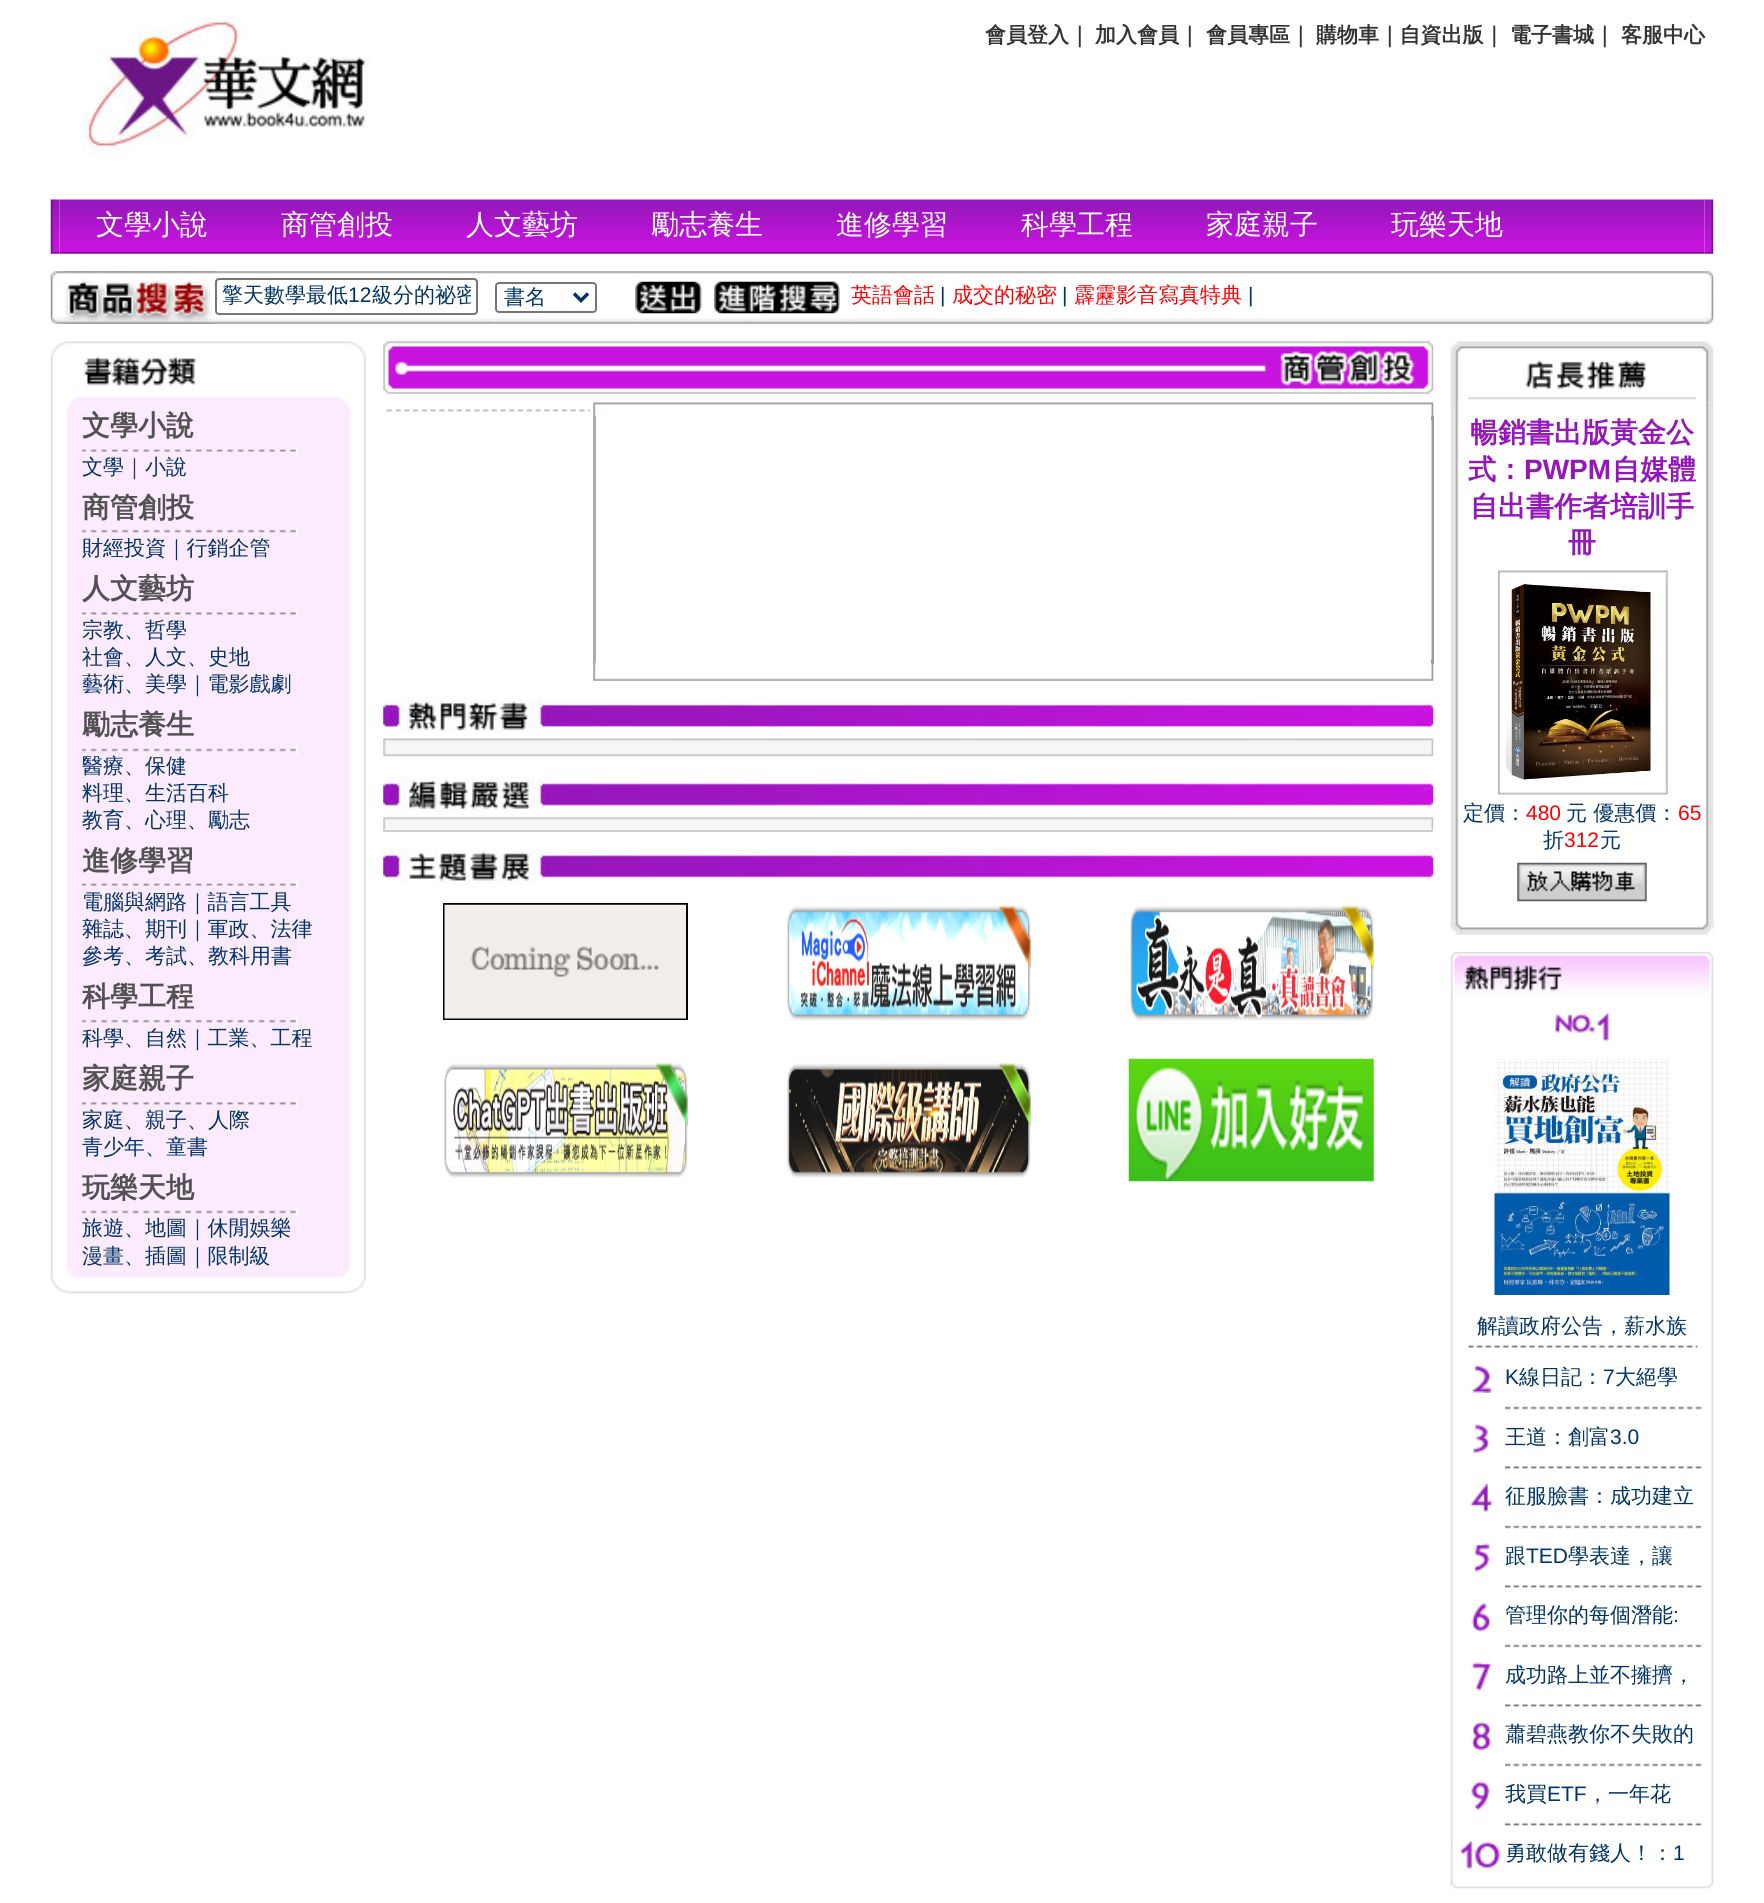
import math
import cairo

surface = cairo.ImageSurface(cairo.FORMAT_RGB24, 1764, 1903)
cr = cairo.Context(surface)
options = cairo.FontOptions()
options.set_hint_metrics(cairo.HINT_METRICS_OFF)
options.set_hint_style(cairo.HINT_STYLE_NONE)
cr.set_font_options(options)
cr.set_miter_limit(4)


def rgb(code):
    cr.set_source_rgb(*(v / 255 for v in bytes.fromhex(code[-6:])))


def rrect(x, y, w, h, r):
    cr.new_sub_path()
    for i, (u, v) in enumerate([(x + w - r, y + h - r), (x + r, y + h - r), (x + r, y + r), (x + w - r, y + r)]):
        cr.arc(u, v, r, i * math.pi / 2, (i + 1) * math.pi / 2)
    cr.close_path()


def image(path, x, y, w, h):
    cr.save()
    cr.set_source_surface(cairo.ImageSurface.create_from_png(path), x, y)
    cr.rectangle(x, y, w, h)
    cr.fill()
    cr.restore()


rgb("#ffffff")
cr.paint()
image("img/1.png", 82, 14, 289, 140)
image("img/3.png", 59, 199, 1646, 55)
image("img/2.png", 50, 199, 10, 55)
image("img/4.png", 1704, 199, 10, 55)
image("img/5.png", 50, 271, 13, 53)
image("img/6.png", 63, 271, 153, 53)
image("img/8.png", 215, 271, 281, 53)
image("img/7.png", 63, 271, 153, 53)
rrect(216, 279, 261, 35, 3)
rgb("#767676")
cr.stroke()
image("img/9.png", 495, 271, 141, 53)
rrect(496, 283, 100, 29, 3)
cr.stroke()
cr.new_path()
cr.move_to(574, 293.5)
cr.line_to(581, 300.5)
cr.line_to(588, 293.5)
rgb("#003366")
cr.set_line_width(3.5)
cr.stroke()
image("img/10.png", 635, 271, 79, 53)
image("img/11.png", 635, 281, 67, 33)
image("img/12.png", 714, 271, 137, 53)
image("img/13.png", 714, 281, 126, 33)
image("img/14.png", 850, 271, 855, 53)
image("img/15.png", 1704, 271, 10, 53)
image("img/17.png", 50, 409, 316, 862)
image("img/16.png", 50, 341, 316, 69)
image("img/18.png", 82, 446, 216, 9)
image("img/19.png", 82, 526, 216, 10)
image("img/20.png", 82, 609, 216, 9)
image("img/21.png", 82, 745, 216, 10)
image("img/18.png", 82, 880, 216, 9)
image("img/19.png", 82, 1016, 216, 10)
image("img/20.png", 82, 1099, 216, 9)
image("img/21.png", 82, 1207, 216, 10)
image("img/22.png", 50, 1270, 316, 24)
image("img/23.png", 383, 341, 1051, 53)
image("img/24.png", 386, 409, 204, 3)
image("img/25.png", 386, 409, 10, 3)
rgb("#9b9b9b")
cr.rectangle(1431, 416, 3, 248)
cr.fill()
image("img/26.png", 593, 402, 841, 15)
rgb("#adadad")
cr.rectangle(593, 416, 3, 248)
cr.fill()
image("img/27.png", 1431, 420, 1, 240)
image("img/28.png", 593, 663, 841, 18)
image("img/29.png", 383, 698, 1051, 35)
image("img/30.png", 383, 738, 1051, 13)
image("img/31.png", 383, 750, 1051, 7)
image("img/32.png", 383, 777, 1051, 35)
image("img/33.png", 383, 816, 1051, 14)
rgb("#cdcdcd")
cr.rectangle(383, 830, 1050, 2)
cr.fill()
image("img/34.png", 383, 849, 1051, 35)
cr.rectangle(444, 904, 243, 115)
rgb("#000000")
cr.set_line_width(2)
cr.stroke()
image("img/35.png", 444, 904, 242, 115)
image("img/36.png", 787, 905, 244, 116)
image("img/37.png", 1130, 905, 244, 116)
image("img/38.png", 444, 1063, 244, 115)
image("img/39.png", 787, 1063, 244, 115)
image("img/40.png", 1128, 1058, 246, 124)
image("img/42.png", 1450, 402, 264, 519)
image("img/41.png", 1450, 341, 264, 62)
image("img/44.png", 1498, 577, 170, 211)
image("img/43.png", 1498, 570, 170, 8)
image("img/45.png", 1505, 584, 147, 196)
image("img/46.png", 1498, 787, 170, 8)
image("img/47.png", 1517, 862, 130, 40)
image("img/48.png", 1450, 920, 264, 15)
image("img/49.png", 1450, 920, 264, 15)
image("img/51.png", 1450, 997, 264, 883)
image("img/50.png", 1450, 952, 264, 46)
image("img/52.png", 1555, 1013, 54, 29)
image("img/53.png", 1494, 1058, 176, 237)
image("img/54.png", 1468, 1345, 230, 3)
image("img/55.png", 1471, 1365, 21, 28)
image("img/56.png", 1505, 1406, 197, 4)
image("img/57.png", 1473, 1424, 17, 29)
image("img/58.png", 1505, 1466, 197, 3)
image("img/59.png", 1470, 1484, 23, 28)
image("img/56.png", 1505, 1525, 197, 4)
image("img/60.png", 1473, 1543, 17, 29)
image("img/58.png", 1505, 1585, 197, 3)
image("img/61.png", 1471, 1603, 19, 28)
image("img/56.png", 1505, 1644, 197, 4)
image("img/62.png", 1471, 1662, 20, 29)
image("img/58.png", 1505, 1704, 197, 3)
image("img/63.png", 1471, 1722, 21, 28)
image("img/56.png", 1505, 1763, 197, 4)
image("img/64.png", 1471, 1781, 19, 29)
image("img/58.png", 1505, 1823, 197, 3)
image("img/65.png", 1460, 1841, 41, 28)
image("img/66.png", 1450, 1879, 264, 10)
image("img/67.png", 1450, 1880, 264, 9)
cr.select_font_face("WenQuanYi Zen Hei", cairo.FONT_SLANT_NORMAL, cairo.FONT_WEIGHT_BOLD)
cr.set_font_size(21)
rgb("#333333")
for x, y, s in [
    (985, 42, "會員登入｜"),
    (1095, 42, "加入會員｜"),
    (1206, 42, "會員專區｜"),
    (1316, 42, "購物車｜自資出版｜"),
    (1510, 42, "電子書城｜"),
    (1621, 42, "客服中心"),
]:
    cr.move_to(x, y)
    cr.show_text(s)
cr.select_font_face("WenQuanYi Zen Hei Medium")
cr.set_font_size(28)
rgb("#ffffff")
for x, y, s in [
    (96, 234, "文學小說"),
    (281, 234, "商管創投"),
    (466, 234, "人文藝坊"),
    (651, 234, "勵志養生"),
    (836, 234, "進修學習"),
    (1021, 234, "科學工程"),
    (1206, 234, "家庭親子"),
    (1391, 234, "玩樂天地"),
]:
    cr.move_to(x, y)
    cr.show_text(s)
cr.set_font_size(21)
rgb("#003366")
cr.move_to(222, 302)
cr.show_text("擎天數學最低")
cr.select_font_face("Liberation Sans")
cr.move_to(348, 302)
cr.show_text("12")
cr.save()
cr.rectangle(222, 284, 249, 26)
cr.clip()
cr.select_font_face("WenQuanYi Zen Hei Medium")
cr.move_to(372, 302)
cr.show_text("級分的祕密")
cr.restore()
cr.select_font_face("WenQuanYi Zen Hei Medium")
cr.move_to(504, 304)
cr.show_text("書名")
rgb("#ff0000")
cr.move_to(851, 302)
cr.show_text("英語會話")
cr.select_font_face("Liberation Sans")
rgb("#003366")
cr.move_to(940, 302)
cr.show_text("|")
cr.select_font_face("WenQuanYi Zen Hei Medium")
rgb("#ff0000")
cr.move_to(952, 302)
cr.show_text("成交的秘密")
cr.select_font_face("Liberation Sans")
rgb("#003366")
cr.move_to(1062, 302)
cr.show_text("|")
cr.select_font_face("WenQuanYi Zen Hei Medium")
rgb("#ff0000")
cr.move_to(1074, 302)
cr.show_text("霹靂影音寫真特典")
cr.select_font_face("Liberation Sans")
rgb("#003366")
cr.move_to(1248, 302)
cr.show_text("|")
cr.select_font_face("WenQuanYi Zen Hei", cairo.FONT_SLANT_NORMAL, cairo.FONT_WEIGHT_BOLD)
cr.set_font_size(28)
rgb("#525252")
cr.move_to(82, 435)
cr.show_text("文學小說")
cr.select_font_face("WenQuanYi Zen Hei Medium")
cr.set_font_size(21)
rgb("#003366")
cr.move_to(82, 474)
cr.show_text("文學")
rgb("#333333")
cr.move_to(124, 474)
cr.show_text("｜")
rgb("#003366")
cr.move_to(145, 474)
cr.show_text("小說")
cr.select_font_face("WenQuanYi Zen Hei", cairo.FONT_SLANT_NORMAL, cairo.FONT_WEIGHT_BOLD)
cr.set_font_size(28)
rgb("#525252")
cr.move_to(82, 517)
cr.show_text("商管創投")
cr.select_font_face("WenQuanYi Zen Hei Medium")
cr.set_font_size(21)
rgb("#003366")
cr.move_to(82, 555)
cr.show_text("財經投資｜行銷企管")
cr.select_font_face("WenQuanYi Zen Hei", cairo.FONT_SLANT_NORMAL, cairo.FONT_WEIGHT_BOLD)
cr.set_font_size(28)
rgb("#525252")
cr.move_to(82, 598)
cr.show_text("人文藝坊")
cr.select_font_face("WenQuanYi Zen Hei Medium")
cr.set_font_size(21)
rgb("#003366")
for x, y, s in [
    (82, 637, "宗教、哲學"),
    (82, 664, "社會、人文、史地"),
    (82, 691, "藝術、美學｜電影戲劇"),
]:
    cr.move_to(x, y)
    cr.show_text(s)
cr.select_font_face("WenQuanYi Zen Hei", cairo.FONT_SLANT_NORMAL, cairo.FONT_WEIGHT_BOLD)
cr.set_font_size(28)
rgb("#525252")
cr.move_to(82, 734)
cr.show_text("勵志養生")
cr.select_font_face("WenQuanYi Zen Hei Medium")
cr.set_font_size(21)
rgb("#003366")
for x, y, s in [
    (82, 773, "醫療、保健"),
    (82, 800, "料理、生活百科"),
    (82, 827, "教育、心理、勵志"),
]:
    cr.move_to(x, y)
    cr.show_text(s)
cr.select_font_face("WenQuanYi Zen Hei", cairo.FONT_SLANT_NORMAL, cairo.FONT_WEIGHT_BOLD)
cr.set_font_size(28)
rgb("#525252")
cr.move_to(82, 870)
cr.show_text("進修學習")
cr.select_font_face("WenQuanYi Zen Hei Medium")
cr.set_font_size(21)
rgb("#003366")
for x, y, s in [
    (82, 909, "電腦與網路｜語言工具"),
    (82, 936, "雜誌、期刊｜軍政、法律"),
    (82, 963, "參考、考試、教科用書"),
]:
    cr.move_to(x, y)
    cr.show_text(s)
cr.select_font_face("WenQuanYi Zen Hei", cairo.FONT_SLANT_NORMAL, cairo.FONT_WEIGHT_BOLD)
cr.set_font_size(28)
rgb("#525252")
cr.move_to(82, 1006)
cr.show_text("科學工程")
cr.select_font_face("WenQuanYi Zen Hei Medium")
cr.set_font_size(21)
rgb("#003366")
cr.move_to(82, 1045)
cr.show_text("科學、自然｜工業、工程")
cr.select_font_face("WenQuanYi Zen Hei", cairo.FONT_SLANT_NORMAL, cairo.FONT_WEIGHT_BOLD)
cr.set_font_size(28)
rgb("#525252")
cr.move_to(82, 1088)
cr.show_text("家庭親子")
cr.select_font_face("WenQuanYi Zen Hei Medium")
cr.set_font_size(21)
rgb("#003366")
cr.move_to(82, 1127)
cr.show_text("家庭、親子、人際")
cr.move_to(82, 1154)
cr.show_text("青少年、童書")
cr.select_font_face("WenQuanYi Zen Hei", cairo.FONT_SLANT_NORMAL, cairo.FONT_WEIGHT_BOLD)
cr.set_font_size(28)
rgb("#525252")
cr.move_to(82, 1197)
cr.show_text("玩樂天地")
cr.select_font_face("WenQuanYi Zen Hei Medium")
cr.set_font_size(21)
rgb("#003366")
cr.move_to(82, 1235)
cr.show_text("旅遊、地圖｜休閒娛樂")
cr.move_to(82, 1263)
cr.show_text("漫畫、插圖｜限制級")
cr.select_font_face("WenQuanYi Zen Hei", cairo.FONT_SLANT_NORMAL, cairo.FONT_WEIGHT_BOLD)
cr.set_font_size(28)
rgb("#9517bb")
cr.move_to(1470, 442)
cr.show_text("暢銷書出版黃金公")
cr.move_to(1468, 479)
cr.show_text("式：")
cr.select_font_face("Liberation Sans", cairo.FONT_SLANT_NORMAL, cairo.FONT_WEIGHT_BOLD)
cr.move_to(1524, 479)
cr.show_text("PWPM")
cr.select_font_face("WenQuanYi Zen Hei", cairo.FONT_SLANT_NORMAL, cairo.FONT_WEIGHT_BOLD)
for x, y, s in [
    (1612, 479, "自媒體"),
    (1470, 516, "自出書作者培訓手"),
    (1568, 552, "冊"),
]:
    cr.move_to(x, y)
    cr.show_text(s)
cr.select_font_face("WenQuanYi Zen Hei Medium")
cr.set_font_size(21)
rgb("#003366")
cr.move_to(1463, 820)
cr.show_text("定價：")
cr.select_font_face("Liberation Sans")
rgb("#ff0000")
cr.move_to(1526, 820)
cr.show_text("480")
cr.select_font_face("WenQuanYi Zen Hei Medium")
rgb("#003366")
cr.move_to(1566, 820)
cr.show_text("元 優惠價：")
cr.select_font_face("Liberation Sans")
rgb("#ff0000")
cr.move_to(1678, 820)
cr.show_text("65")
cr.select_font_face("WenQuanYi Zen Hei Medium")
rgb("#003366")
cr.move_to(1543, 847)
cr.show_text("折")
cr.select_font_face("Liberation Sans")
rgb("#ff0000")
cr.move_to(1564, 847)
cr.show_text("312")
cr.select_font_face("WenQuanYi Zen Hei Medium")
rgb("#003366")
cr.move_to(1600, 847)
cr.show_text("元")
cr.move_to(1477, 1333)
cr.show_text("解讀政府公告，薪水族")
cr.select_font_face("Liberation Sans")
cr.move_to(1505, 1384)
cr.show_text("K")
cr.select_font_face("WenQuanYi Zen Hei Medium")
cr.move_to(1519, 1384)
cr.show_text("線日記：")
cr.select_font_face("Liberation Sans")
cr.move_to(1603, 1384)
cr.show_text("7")
cr.select_font_face("WenQuanYi Zen Hei Medium")
cr.move_to(1615, 1384)
cr.show_text("大絕學")
cr.move_to(1505, 1444)
cr.show_text("王道：創富")
cr.select_font_face("Liberation Sans")
cr.move_to(1610, 1444)
cr.show_text("3.0")
cr.select_font_face("WenQuanYi Zen Hei Medium")
cr.move_to(1505, 1503)
cr.show_text("征服臉書：成功建立")
cr.move_to(1505, 1563)
cr.show_text("跟")
cr.select_font_face("Liberation Sans")
cr.move_to(1526, 1563)
cr.show_text("TED")
cr.select_font_face("WenQuanYi Zen Hei Medium")
cr.move_to(1568, 1563)
cr.show_text("學表達，讓")
cr.move_to(1505, 1622)
cr.show_text("管理你的每個潛能")
cr.select_font_face("Liberation Sans")
cr.move_to(1673, 1622)
cr.show_text(":")
cr.select_font_face("WenQuanYi Zen Hei Medium")
for x, y, s in [
    (1505, 1682, "成功路上並不擁擠，"),
    (1505, 1741, "蕭碧燕教你不失敗的"),
    (1505, 1801, "我買"),
]:
    cr.move_to(x, y)
    cr.show_text(s)
cr.select_font_face("Liberation Sans")
cr.move_to(1547, 1801)
cr.show_text("ETF")
cr.select_font_face("WenQuanYi Zen Hei Medium")
cr.move_to(1587, 1801)
cr.show_text("，一年花")
cr.move_to(1505, 1860)
cr.show_text("勇敢做有錢人！：")
cr.select_font_face("Liberation Sans")
cr.move_to(1673, 1860)
cr.show_text("1")
surface.write_to_png("page.png")
